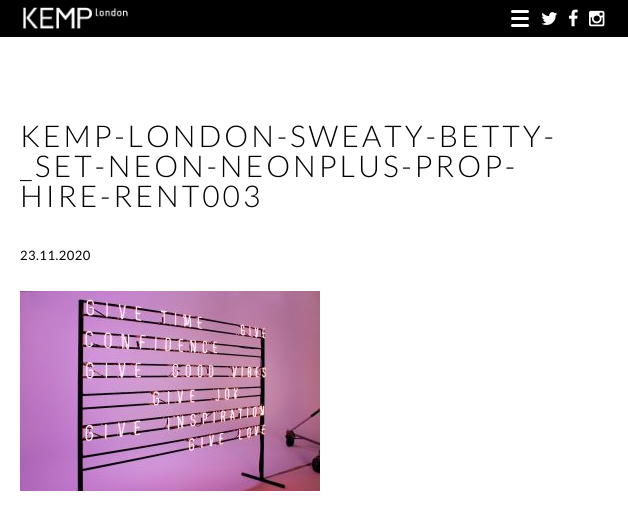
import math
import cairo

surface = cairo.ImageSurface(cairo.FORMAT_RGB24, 628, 529)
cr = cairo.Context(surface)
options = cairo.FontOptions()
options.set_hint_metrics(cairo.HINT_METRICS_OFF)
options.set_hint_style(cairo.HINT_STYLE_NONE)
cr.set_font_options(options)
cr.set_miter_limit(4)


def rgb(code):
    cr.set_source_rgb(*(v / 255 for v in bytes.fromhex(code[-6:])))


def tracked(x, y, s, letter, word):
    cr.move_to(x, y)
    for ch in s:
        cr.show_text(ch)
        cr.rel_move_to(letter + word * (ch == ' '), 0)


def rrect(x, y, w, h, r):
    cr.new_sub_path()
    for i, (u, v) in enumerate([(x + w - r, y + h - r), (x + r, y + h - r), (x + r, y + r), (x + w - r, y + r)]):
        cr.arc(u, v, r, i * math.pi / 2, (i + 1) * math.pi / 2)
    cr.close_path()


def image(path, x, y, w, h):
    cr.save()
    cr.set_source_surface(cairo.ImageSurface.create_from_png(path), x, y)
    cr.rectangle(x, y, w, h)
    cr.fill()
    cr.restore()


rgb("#ffffff")
cr.paint()
rgb("#000000")
cr.rectangle(0, 0, 628, 37)
cr.fill()
image("img/1.png", 22, 7, 106, 22)
rgb("#ffffff")
rrect(511, 10, 18, 3, 1.5)
cr.fill()
rrect(511, 17, 18, 3, 1.5)
cr.fill()
rrect(511, 24, 18, 3, 1.5)
cr.fill()
image("img/2.png", 541, 12, 17, 13)
image("img/3.png", 568, 9, 10, 18)
image("img/4.png", 589, 10, 16, 17)
image("img/5.png", 20, 291, 300, 200)
cr.select_font_face("Lato Light")
cr.set_font_size(30)
rgb("#000000")
for x, y, s in [
    (20, 147, "KEMP-LONDON-SWEATY-BETTY-"),
    (20, 177, "_SET-NEON-NEONPLUS-PROP-"),
    (20, 207, "HIRE-RENT003"),
]:
    tracked(x, y, s, 3, 0)
cr.select_font_face("Lato")
cr.set_font_size(13)
tracked(20, 260, "23.11.2020", 0.5, 0)
surface.write_to_png("page.png")
